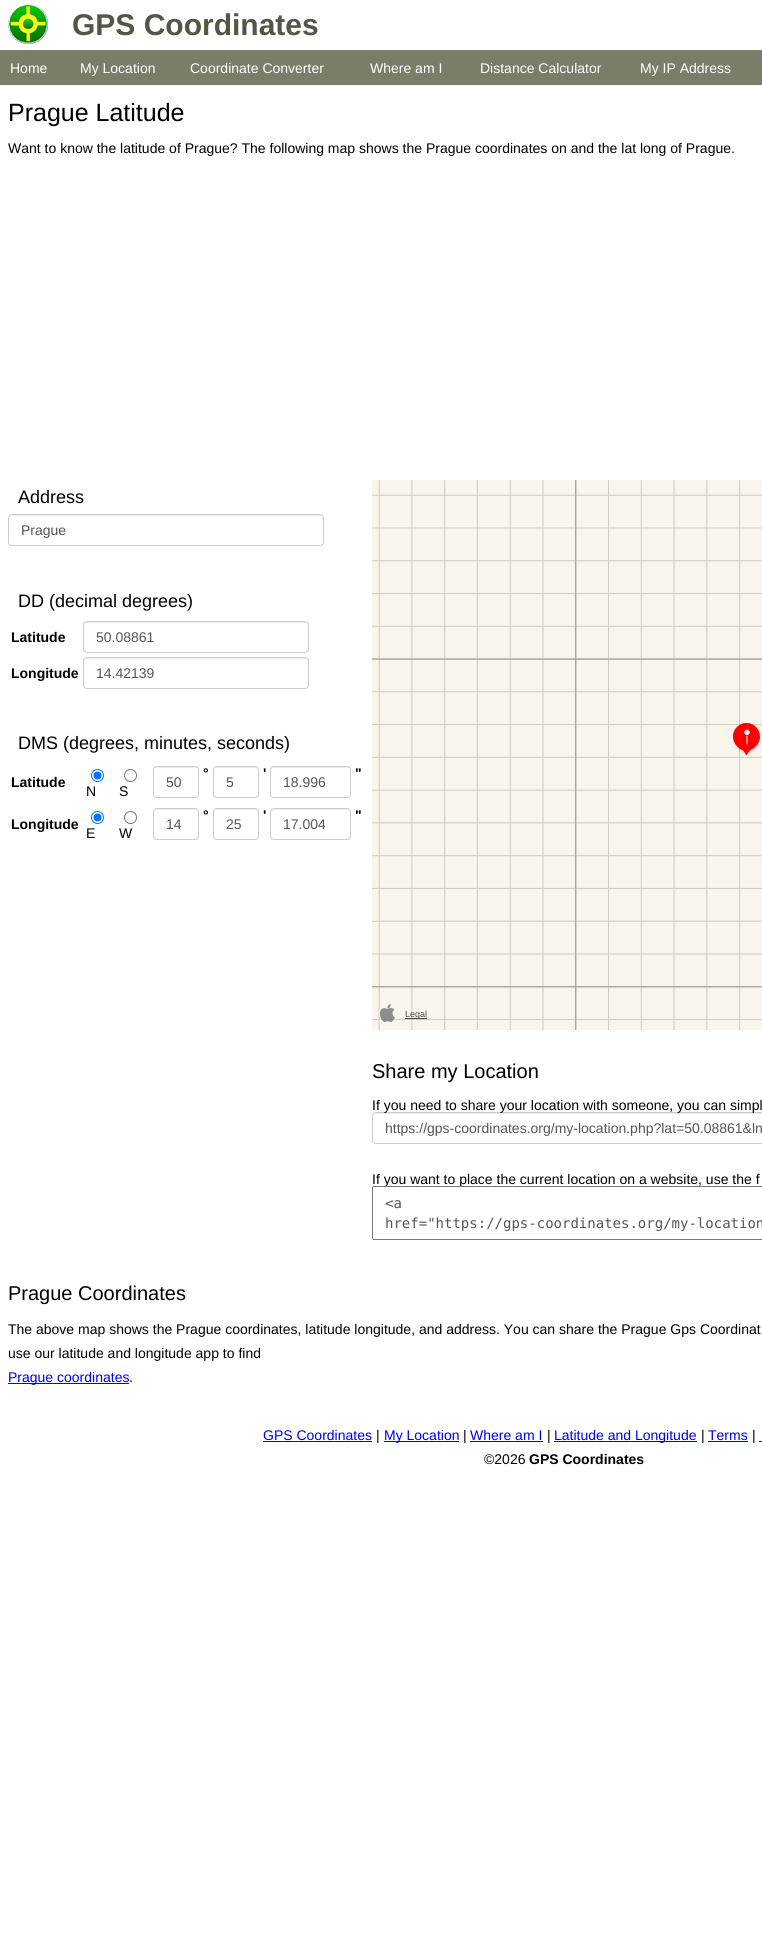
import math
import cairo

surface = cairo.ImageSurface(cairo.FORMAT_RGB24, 762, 1936)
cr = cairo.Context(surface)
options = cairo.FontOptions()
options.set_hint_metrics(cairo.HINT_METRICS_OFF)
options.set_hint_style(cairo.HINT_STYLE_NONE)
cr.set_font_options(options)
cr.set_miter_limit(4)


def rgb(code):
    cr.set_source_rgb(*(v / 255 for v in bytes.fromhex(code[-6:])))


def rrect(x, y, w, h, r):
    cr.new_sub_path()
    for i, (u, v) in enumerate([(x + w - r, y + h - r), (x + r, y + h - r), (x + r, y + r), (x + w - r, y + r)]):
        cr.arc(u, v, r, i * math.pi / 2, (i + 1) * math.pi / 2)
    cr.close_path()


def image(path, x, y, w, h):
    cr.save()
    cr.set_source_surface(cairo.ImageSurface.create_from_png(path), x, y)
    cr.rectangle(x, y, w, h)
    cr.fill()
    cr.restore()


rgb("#ffffff")
cr.paint()
image("img/1.png", 8, 4, 40, 40)
rgb("#787e68")
cr.rectangle(0, 50, 762, 35)
cr.fill()
rgb("#ececec")
cr.new_path()
cr.move_to(12, 516)
cr.line_to(320, 516)
cr.curve_to(322, 516, 323, 517, 323, 519)
cr.line_to(322, 516)
cr.line_to(321, 515)
cr.line_to(12, 515)
cr.curve_to(10, 515, 9, 517, 9, 519)
cr.curve_to(9, 517, 10, 516, 12, 516)
cr.close_path()
cr.fill()
rrect(8.5, 514.5, 315, 31, 3.5)
rgb("#cccccc")
cr.set_line_width(1)
cr.stroke()
rgb("#ececec")
cr.new_path()
cr.move_to(87, 623)
cr.line_to(305, 623)
cr.curve_to(307, 623, 308, 624, 308, 626)
cr.line_to(308, 625)
cr.curve_to(308, 623, 307, 622, 305, 622)
cr.line_to(87, 622)
cr.curve_to(85, 622, 84, 623, 84, 625)
cr.line_to(84, 626)
cr.curve_to(84, 624, 85, 623, 87, 623)
cr.close_path()
cr.fill()
rrect(83.5, 621.5, 225, 31, 3.5)
rgb("#cccccc")
cr.stroke()
rgb("#ececec")
cr.new_path()
cr.move_to(87, 659)
cr.line_to(305, 659)
cr.curve_to(307, 659, 308, 660, 308, 662)
cr.line_to(308, 661)
cr.curve_to(308, 659, 307, 658, 305, 658)
cr.line_to(87, 658)
cr.curve_to(85, 658, 84, 659, 84, 661)
cr.line_to(84, 662)
cr.curve_to(84, 660, 85, 659, 87, 659)
cr.close_path()
cr.fill()
rrect(83.5, 657.5, 225, 31, 3.5)
rgb("#cccccc")
cr.stroke()
rgb("#ececec")
cr.new_path()
cr.move_to(157, 768)
cr.line_to(195, 768)
cr.curve_to(197, 768, 198, 769, 198, 771)
cr.curve_to(198, 766, 193, 767, 189, 767)
cr.line_to(163, 767)
cr.curve_to(159, 767, 154, 766, 154, 771)
cr.curve_to(154, 769, 155, 768, 157, 768)
cr.close_path()
cr.fill()
rrect(153.5, 766.5, 45, 31, 3.5)
rgb("#cccccc")
cr.stroke()
rgb("#ececec")
cr.new_path()
cr.move_to(217, 768)
cr.line_to(255, 768)
cr.curve_to(257, 768, 258, 769, 258, 771)
cr.curve_to(258, 766, 253, 767, 249, 767)
cr.line_to(223, 767)
cr.curve_to(219, 767, 214, 766, 214, 771)
cr.curve_to(214, 769, 215, 768, 217, 768)
cr.close_path()
cr.fill()
rrect(213.5, 766.5, 45, 31, 3.5)
rgb("#cccccc")
cr.stroke()
rgb("#ececec")
cr.new_path()
cr.move_to(274, 768)
cr.line_to(347, 768)
cr.curve_to(349, 768, 350, 769, 350, 771)
cr.curve_to(350, 764, 339, 767, 335, 767)
cr.line_to(286, 767)
cr.curve_to(282, 767, 271, 764, 271, 771)
cr.curve_to(271, 769, 272, 768, 274, 768)
cr.close_path()
cr.fill()
rrect(270.5, 766.5, 80, 31, 3.5)
rgb("#cccccc")
cr.stroke()
cr.arc(97.5, 775.5, 6, 0, 2 * math.pi)
rgb("#0075ff")
cr.stroke()
cr.arc(97.5, 775.5, 4, 0, 2 * math.pi)
cr.fill()
cr.arc(130.5, 775.5, 6, 0, 2 * math.pi)
rgb("#767676")
cr.stroke()
rgb("#ececec")
cr.new_path()
cr.move_to(157, 810)
cr.line_to(195, 810)
cr.curve_to(197, 810, 198, 811, 198, 813)
cr.curve_to(198, 808, 193, 809, 189, 809)
cr.line_to(163, 809)
cr.curve_to(159, 809, 154, 808, 154, 813)
cr.curve_to(154, 811, 155, 810, 157, 810)
cr.close_path()
cr.fill()
rrect(153.5, 808.5, 45, 31, 3.5)
rgb("#cccccc")
cr.stroke()
rgb("#ececec")
cr.new_path()
cr.move_to(217, 810)
cr.line_to(255, 810)
cr.curve_to(257, 810, 258, 811, 258, 813)
cr.curve_to(258, 808, 253, 809, 249, 809)
cr.line_to(223, 809)
cr.curve_to(219, 809, 214, 808, 214, 813)
cr.curve_to(214, 811, 215, 810, 217, 810)
cr.close_path()
cr.fill()
rrect(213.5, 808.5, 45, 31, 3.5)
rgb("#cccccc")
cr.stroke()
rgb("#ececec")
cr.new_path()
cr.move_to(274, 810)
cr.line_to(347, 810)
cr.curve_to(349, 810, 350, 811, 350, 813)
cr.curve_to(350, 806, 339, 809, 335, 809)
cr.line_to(286, 809)
cr.curve_to(282, 809, 271, 806, 271, 813)
cr.curve_to(271, 811, 272, 810, 274, 810)
cr.close_path()
cr.fill()
rrect(270.5, 808.5, 80, 31, 3.5)
rgb("#cccccc")
cr.stroke()
cr.arc(97.5, 817.5, 6, 0, 2 * math.pi)
rgb("#0075ff")
cr.stroke()
cr.arc(97.5, 817.5, 4, 0, 2 * math.pi)
cr.fill()
cr.arc(130.5, 817.5, 6, 0, 2 * math.pi)
rgb("#767676")
cr.stroke()
image("img/2.png", 372, 480, 390, 550)
image("img/3.png", 379, 1003, 17, 20)
cr.set_source_rgba(0, 0, 0, 0.7)
cr.rectangle(405, 1018, 22, 1)
cr.fill()
rgb("#ececec")
cr.new_path()
cr.move_to(376, 1114)
cr.line_to(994, 1114)
cr.curve_to(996, 1114, 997, 1115, 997, 1117)
cr.line_to(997, 1116)
cr.curve_to(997, 1114, 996, 1113, 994, 1113)
cr.line_to(376, 1113)
cr.curve_to(374, 1113, 373, 1114, 373, 1116)
cr.line_to(373, 1117)
cr.curve_to(373, 1115, 374, 1114, 376, 1114)
cr.close_path()
cr.fill()
rrect(372.5, 1112.5, 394, 31, 3.5)
rgb("#cccccc")
cr.stroke()
for x, y, w, h, color in [
    (8, 1383, 121, 1, "#0000ee"),
    (263, 1441, 109, 1, "#0000ee"),
    (384, 1441, 75, 1, "#0000ee"),
    (470, 1441, 73, 1, "#0000ee"),
    (554, 1441, 143, 1, "#0000ee"),
    (708, 1441, 40, 1, "#0000ee"),
    (759, 1441, 3, 1, "#0000ee"),
]:
    rgb(color)
    cr.rectangle(x, y, w, h)
    cr.fill()
cr.select_font_face("Liberation Sans", cairo.FONT_SLANT_NORMAL, cairo.FONT_WEIGHT_BOLD)
cr.set_font_size(30)
rgb("#525646")
cr.move_to(72, 35)
cr.show_text("GPS Coordinates")
cr.select_font_face("Liberation Sans")
cr.set_font_size(14)
rgb("#ffffff")
for x, y, s in [
    (10, 73, "Home"),
    (80, 73, "My Location"),
    (190, 73, "Coordinate Converter"),
    (370, 73, "Where am I"),
    (480, 73, "Distance Calculator"),
    (640, 73, "My IP Address"),
]:
    cr.move_to(x, y)
    cr.show_text(s)
cr.set_font_size(25)
rgb("#000000")
cr.move_to(8, 121)
cr.show_text("Prague Latitude")
cr.set_font_size(14)
cr.move_to(8, 153)
cr.show_text("Want to know the latitude of Prague? The following map shows the Prague coordinates on and the lat long of Prague.")
cr.set_font_size(18)
cr.move_to(18, 503)
cr.show_text("Address")
cr.set_font_size(14)
rgb("#555555")
cr.move_to(21, 535)
cr.show_text("Prague")
cr.set_font_size(18)
rgb("#000000")
cr.move_to(18, 607)
cr.show_text("DD (decimal degrees)")
cr.select_font_face("Liberation Sans", cairo.FONT_SLANT_NORMAL, cairo.FONT_WEIGHT_BOLD)
cr.set_font_size(14)
cr.move_to(11, 642)
cr.show_text("Latitude")
cr.select_font_face("Liberation Sans")
rgb("#555555")
cr.move_to(96, 642)
cr.show_text("50.08861")
cr.select_font_face("Liberation Sans", cairo.FONT_SLANT_NORMAL, cairo.FONT_WEIGHT_BOLD)
rgb("#000000")
cr.move_to(11, 678)
cr.show_text("Longitude")
cr.select_font_face("Liberation Sans")
rgb("#555555")
cr.move_to(96, 678)
cr.show_text("14.42139")
cr.set_font_size(18)
rgb("#000000")
cr.move_to(18, 749)
cr.show_text("DMS (degrees, minutes, seconds)")
cr.select_font_face("Liberation Sans", cairo.FONT_SLANT_NORMAL, cairo.FONT_WEIGHT_BOLD)
cr.set_font_size(14)
for x, y, s in [
    (11, 787, "Latitude"),
    (203, 778, "°"),
    (263, 778, "'"),
    (355, 778, "\""),
]:
    cr.move_to(x, y)
    cr.show_text(s)
cr.select_font_face("Liberation Sans")
rgb("#555555")
for x, y, s in [
    (166, 787, "50"),
    (226, 787, "5"),
    (283, 787, "18.996"),
]:
    cr.move_to(x, y)
    cr.show_text(s)
rgb("#000000")
cr.move_to(86, 796)
cr.show_text("N")
cr.move_to(119, 796)
cr.show_text("S")
cr.select_font_face("Liberation Sans", cairo.FONT_SLANT_NORMAL, cairo.FONT_WEIGHT_BOLD)
for x, y, s in [
    (11, 829, "Longitude"),
    (203, 820, "°"),
    (263, 820, "'"),
    (355, 820, "\""),
]:
    cr.move_to(x, y)
    cr.show_text(s)
cr.select_font_face("Liberation Sans")
rgb("#555555")
for x, y, s in [
    (166, 829, "14"),
    (226, 829, "25"),
    (283, 829, "17.004"),
]:
    cr.move_to(x, y)
    cr.show_text(s)
rgb("#000000")
cr.move_to(86, 838)
cr.show_text("E")
cr.move_to(119, 838)
cr.show_text("W")
cr.set_font_size(9)
rgb("#484745")
cr.move_to(405, 1017)
cr.show_text("Legal")
cr.set_font_size(20)
rgb("#000000")
cr.move_to(372, 1078)
cr.show_text("Share my Location")
cr.set_font_size(14)
cr.move_to(372, 1110)
cr.show_text("If you need to share your location with someone, you can simpl")
rgb("#555555")
cr.move_to(385, 1133)
cr.show_text("https://gps-coordinates.org/my-location.php?lat=50.08861&ln")
rgb("#000000")
cr.move_to(372, 1184)
cr.show_text("If you want to place the current location on a website, use the f")
rgb("#ffffff")
rrect(372.5, 1186.5, 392, 53, 1.5)
cr.fill_preserve()
rgb("#767676")
cr.stroke()
cr.select_font_face("DejaVu Sans Mono")
rgb("#555555")
cr.move_to(385, 1208)
cr.show_text("<a")
cr.move_to(385, 1228)
cr.show_text("href=\"https://gps-coordinates.org/my-location")
cr.select_font_face("Liberation Sans")
cr.set_font_size(20)
rgb("#000000")
cr.move_to(8, 1300)
cr.show_text("Prague Coordinates")
cr.set_font_size(14)
cr.move_to(8, 1334)
cr.show_text("The above map shows the Prague coordinates, latitude longitude, and address. You can share the Prague Gps Coordinat")
cr.move_to(8, 1358)
cr.show_text("use our latitude and longitude app to find")
rgb("#0000ee")
cr.move_to(8, 1382)
cr.show_text("Prague coordinates")
rgb("#000000")
cr.move_to(129, 1382)
cr.show_text(".")
rgb("#0000ee")
cr.move_to(263, 1440)
cr.show_text("GPS Coordinates")
rgb("#000000")
cr.move_to(376, 1440)
cr.show_text("|")
rgb("#0000ee")
cr.move_to(384, 1440)
cr.show_text("My Location")
rgb("#000000")
cr.move_to(463, 1440)
cr.show_text("|")
rgb("#0000ee")
cr.move_to(470, 1440)
cr.show_text("Where am I")
rgb("#000000")
cr.move_to(547, 1440)
cr.show_text("|")
rgb("#0000ee")
cr.move_to(554, 1440)
cr.show_text("Latitude and Longitude")
rgb("#000000")
cr.move_to(701, 1440)
cr.show_text("|")
rgb("#0000ee")
cr.move_to(708, 1440)
cr.show_text("Terms")
rgb("#000000")
cr.move_to(752, 1440)
cr.show_text("|")
cr.move_to(484, 1464)
cr.show_text("©2026")
cr.select_font_face("Liberation Sans", cairo.FONT_SLANT_NORMAL, cairo.FONT_WEIGHT_BOLD)
cr.move_to(529, 1464)
cr.show_text("GPS Coordinates")
surface.write_to_png("page.png")
